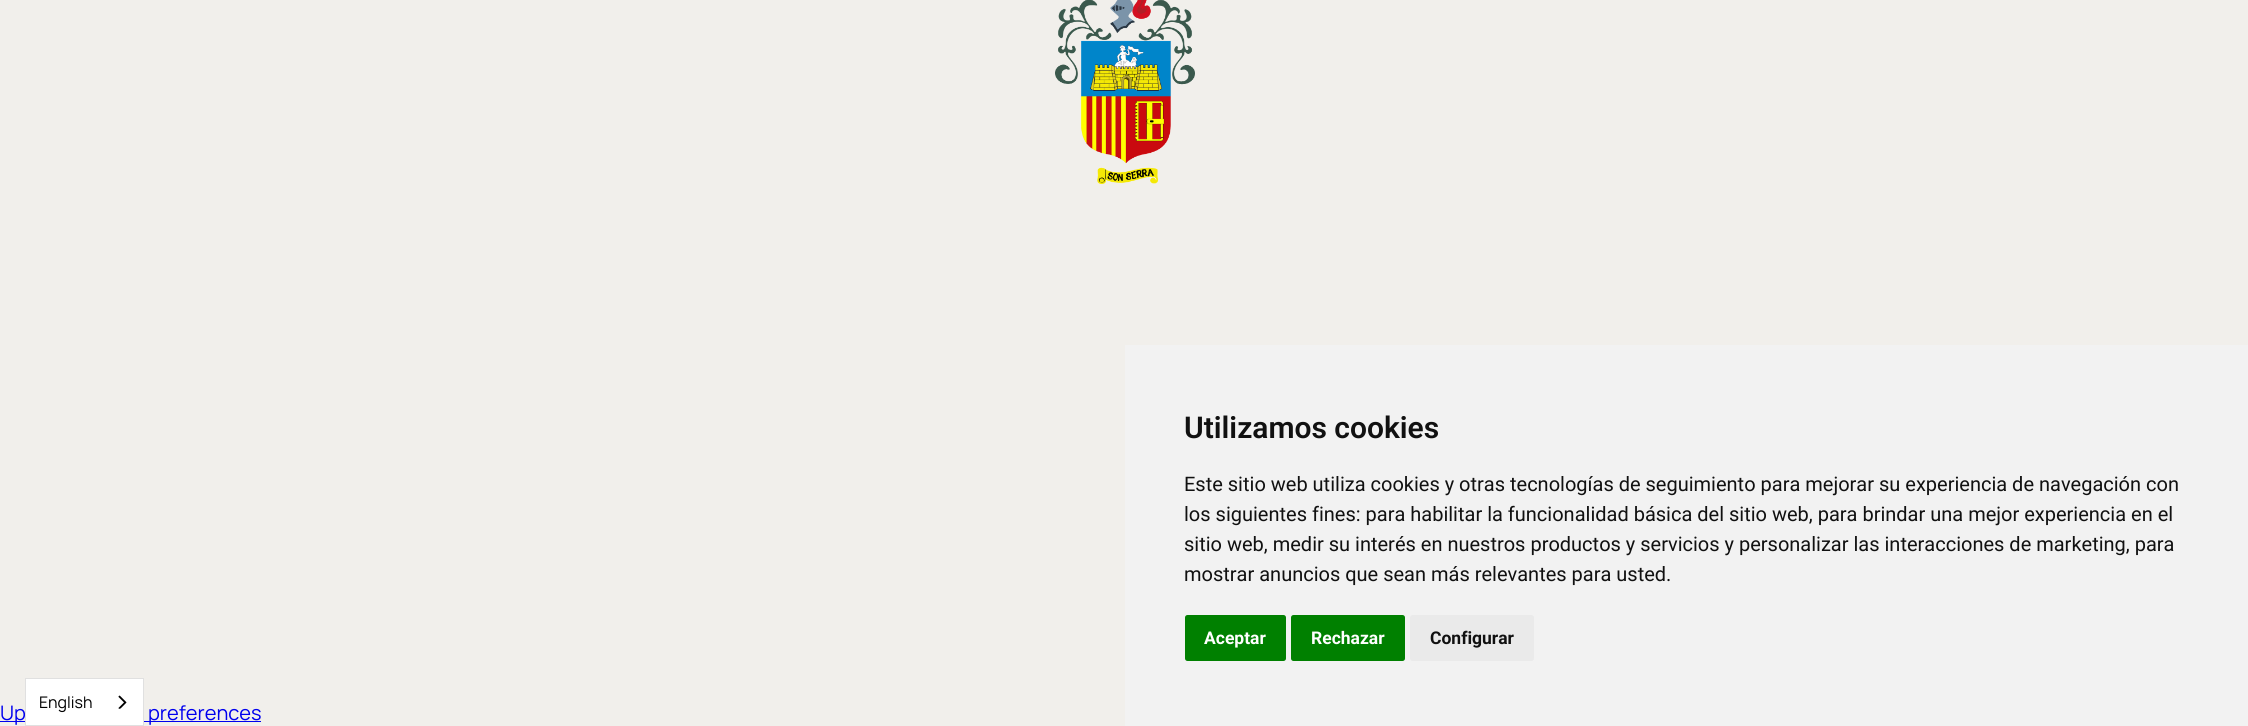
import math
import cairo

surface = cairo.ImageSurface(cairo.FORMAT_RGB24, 2248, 726)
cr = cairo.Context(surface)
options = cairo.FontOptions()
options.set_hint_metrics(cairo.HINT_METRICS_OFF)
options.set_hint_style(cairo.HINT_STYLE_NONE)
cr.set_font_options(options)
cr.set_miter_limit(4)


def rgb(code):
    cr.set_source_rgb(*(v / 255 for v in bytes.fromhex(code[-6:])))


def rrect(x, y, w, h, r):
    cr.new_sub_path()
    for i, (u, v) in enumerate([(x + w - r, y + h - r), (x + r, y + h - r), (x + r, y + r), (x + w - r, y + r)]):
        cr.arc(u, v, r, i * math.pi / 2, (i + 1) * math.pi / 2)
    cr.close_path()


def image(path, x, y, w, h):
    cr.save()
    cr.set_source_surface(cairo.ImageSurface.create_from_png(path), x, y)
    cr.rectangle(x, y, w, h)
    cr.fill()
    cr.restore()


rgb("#f1efeb")
cr.paint()
image("img/1.png", 1055, 0, 140, 184)
rgb("#f2f2f2")
cr.rectangle(1125, 345, 1123, 381)
cr.fill()
rgb("#008000")
rrect(1185, 615, 101, 46, 2.5)
cr.fill()
rrect(1291, 615, 114, 46, 2.5)
cr.fill()
rgb("#eaeaea")
rrect(1410, 615, 124, 46, 2.5)
cr.fill()
rgb("#0000ee")
cr.rectangle(0, 721, 261, 1)
cr.fill()
cr.select_font_face("Roboto SemiBold")
cr.set_font_size(30)
rgb("#111111")
cr.move_to(1184, 438)
cr.show_text("Utilizamos cookies")
cr.select_font_face("Roboto")
cr.set_font_size(20)
for x, y, s in [
    (1184, 491, "Este sitio web utiliza cookies y otras tecnologías de seguimiento para mejorar su experiencia de navegación con"),
    (1184, 521, "los siguientes fines: para habilitar la funcionalidad básica del sitio web, para brindar una mejor experiencia en el"),
    (1184, 551, "sitio web, medir su interés en nuestros productos y servicios y personalizar las interacciones de marketing, para"),
    (1184, 581, "mostrar anuncios que sean más relevantes para usted."),
]:
    cr.move_to(x, y)
    cr.show_text(s)
cr.select_font_face("Roboto", cairo.FONT_SLANT_NORMAL, cairo.FONT_WEIGHT_BOLD)
cr.set_font_size(17.5)
rgb("#ffffff")
cr.move_to(1204, 644)
cr.show_text("Aceptar")
cr.move_to(1311, 644)
cr.show_text("Rechazar")
rgb("#111111")
cr.move_to(1430, 644)
cr.show_text("Configurar")
cr.select_font_face("Manrope")
cr.set_font_size(20)
rgb("#0000ee")
cr.move_to(0, 720)
cr.show_text("Up")
rgb("#ffffff")
cr.rectangle(25.5, 678.5, 118, 47)
cr.fill_preserve()
rgb("#e0e0e0")
cr.set_line_width(1)
cr.stroke()
image("img/2.png", 118, 695, 9, 14)
cr.set_font_size(16)
rgb("#000000")
cr.move_to(39, 708)
cr.show_text("English")
cr.set_font_size(20)
rgb("#0000ee")
cr.move_to(148, 720)
cr.show_text("preferences")
surface.write_to_png("page.png")
